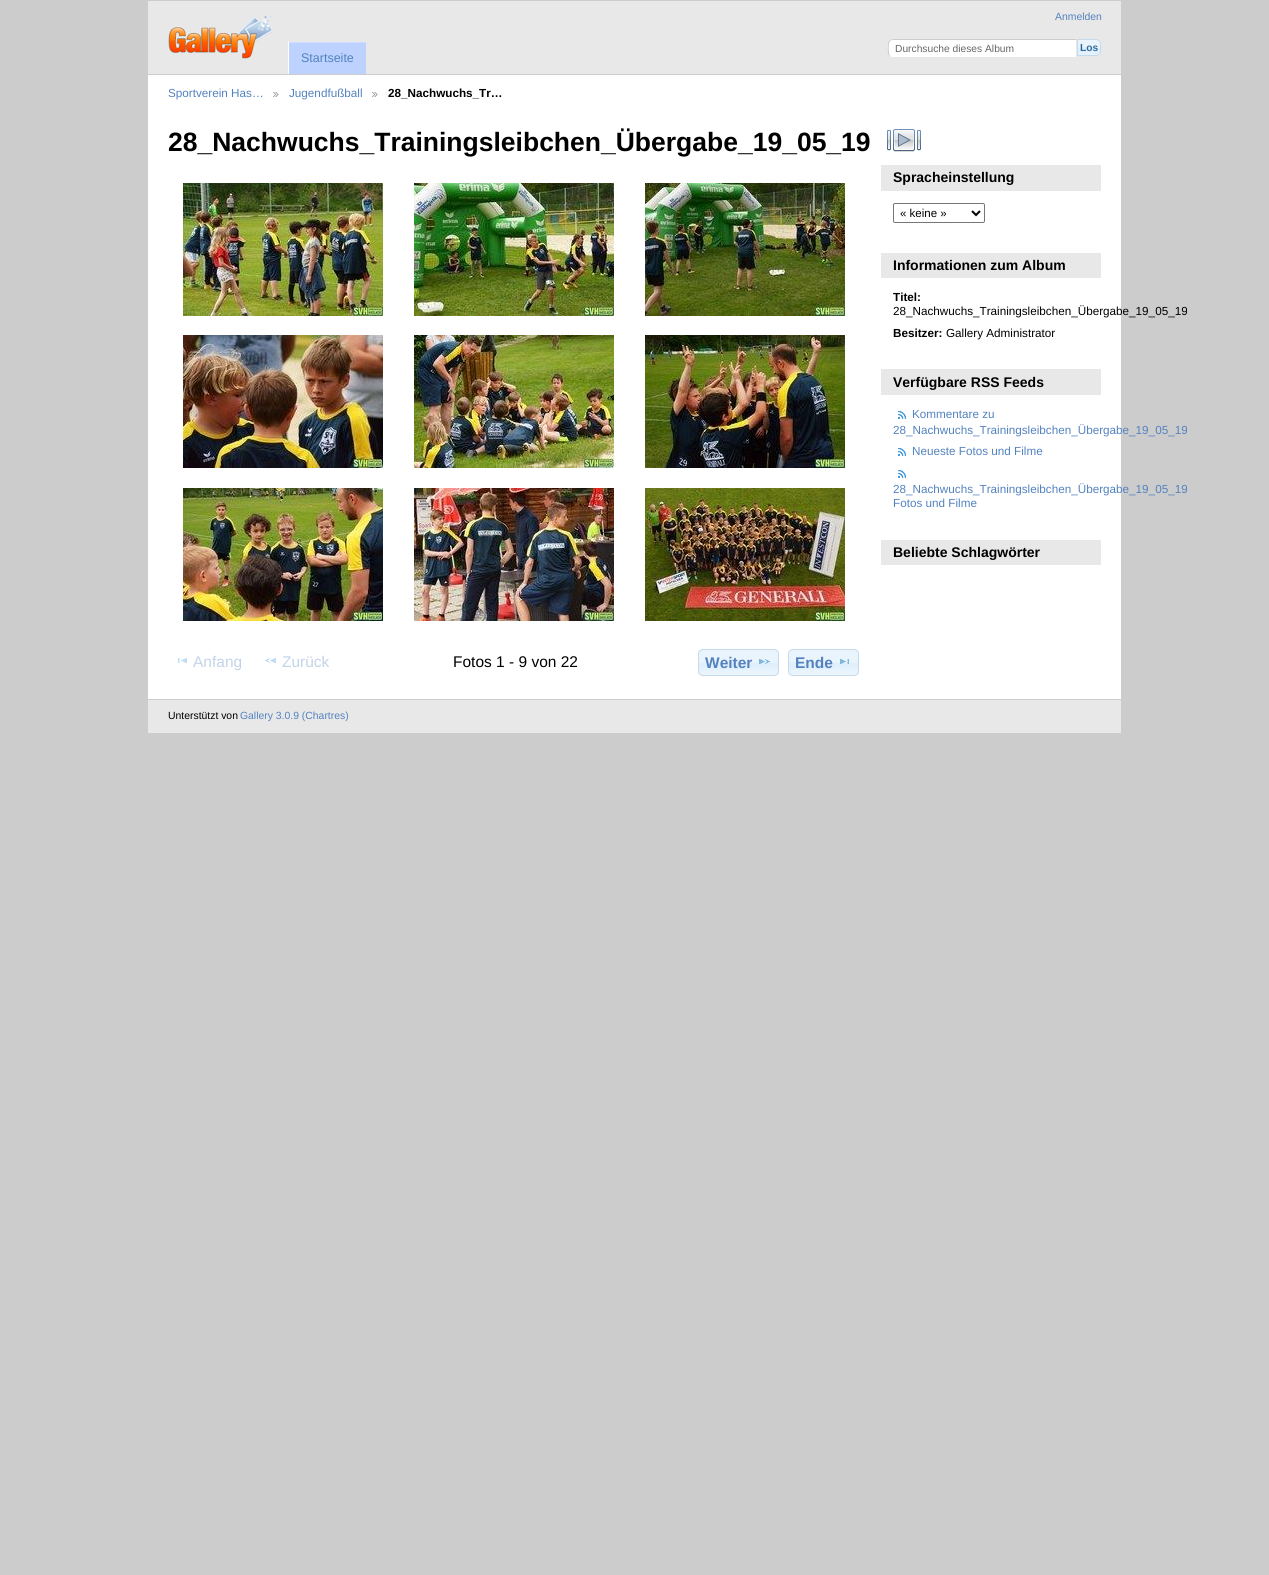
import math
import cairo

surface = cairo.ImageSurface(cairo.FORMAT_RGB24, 1269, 1575)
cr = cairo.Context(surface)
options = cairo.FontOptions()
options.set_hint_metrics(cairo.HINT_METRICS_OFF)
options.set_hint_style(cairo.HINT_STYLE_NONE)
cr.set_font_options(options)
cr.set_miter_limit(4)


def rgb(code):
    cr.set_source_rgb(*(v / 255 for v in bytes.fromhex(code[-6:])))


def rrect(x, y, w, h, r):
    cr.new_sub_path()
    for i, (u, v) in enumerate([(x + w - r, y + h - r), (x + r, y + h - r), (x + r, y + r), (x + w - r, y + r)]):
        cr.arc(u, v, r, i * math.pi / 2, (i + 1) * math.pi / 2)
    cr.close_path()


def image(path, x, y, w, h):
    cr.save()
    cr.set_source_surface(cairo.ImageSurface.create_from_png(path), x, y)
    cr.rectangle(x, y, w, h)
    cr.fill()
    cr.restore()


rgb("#cccccc")
cr.paint()
rgb("#ffffff")
cr.rectangle(148, 75, 973, 624)
cr.fill()
rgb("#e8e8e8")
cr.rectangle(148, 1, 973, 73)
cr.fill()
image("img/1.png", 168, 15, 106, 44)
rgb("#ffffff")
cr.new_path()
cr.move_to(893, 39)
cr.line_to(1077, 39)
cr.line_to(1077, 58)
cr.line_to(893, 58)
cr.curve_to(890, 58, 888, 56, 888, 53)
cr.line_to(888, 44)
cr.curve_to(888, 41, 890, 39, 893, 39)
cr.close_path()
cr.fill()
rgb("#cccccc")
cr.new_path()
cr.move_to(893, 39)
cr.curve_to(892, 39, 890, 40, 889, 40)
cr.line_to(890, 41)
cr.curve_to(891, 40, 892, 40, 893, 40)
cr.line_to(1076, 40)
cr.line_to(1077, 39)
cr.close_path()
cr.fill()
rgb("#e8e8e8")
cr.new_path()
cr.move_to(1077, 39)
cr.line_to(1076, 40)
cr.line_to(1076, 57)
cr.line_to(1077, 58)
cr.close_path()
cr.fill()
cr.new_path()
cr.move_to(1077, 58)
cr.line_to(1076, 57)
cr.line_to(892, 57)
cr.line_to(890, 56)
cr.line_to(889, 57)
cr.curve_to(890, 58, 892, 58, 893, 58)
cr.close_path()
cr.fill()
rgb("#cccccc")
cr.new_path()
cr.move_to(888, 44)
cr.curve_to(888, 47, 887, 54.5, 889.5, 56.5)
cr.line_to(890, 56)
cr.curve_to(888.5, 53.5, 888.5, 46, 889, 43.5)
cr.line_to(890, 41)
cr.line_to(889.5, 40.5)
cr.curve_to(888.5, 41, 888, 42.5, 888, 44)
cr.close_path()
cr.fill()
image("img/2.png", 1078, 39, 23, 17)
cr.new_path()
cr.move_to(1077.5, 39.5)
cr.line_to(1096, 39.5)
cr.curve_to(1098.5, 39.5, 1100.5, 41.5, 1100.5, 44)
cr.line_to(1100.5, 51)
cr.curve_to(1100.5, 53.5, 1098.5, 55.5, 1096, 55.5)
cr.line_to(1077.5, 55.5)
cr.close_path()
rgb("#c5dbec")
cr.set_line_width(1)
cr.stroke()
for x, y, w, h, color in [
    (289, 43, 77, 31, "#bdd2ff"),
    (288, 42, 78, 1, "#cfdeff"),
    (288, 42, 1, 32, "#ffffff"),
]:
    rgb(color)
    cr.rectangle(x, y, w, h)
    cr.fill()
image("img/3.png", 273, 92, 6, 5)
image("img/3.png", 372, 92, 6, 5)
image("img/4.png", 183, 183, 200, 133)
image("img/5.png", 414, 183, 200, 133)
image("img/6.png", 645, 183, 200, 133)
image("img/7.png", 183, 335, 200, 133)
image("img/8.png", 414, 335, 200, 133)
image("img/9.png", 645, 335, 200, 133)
image("img/10.png", 183, 488, 200, 133)
image("img/11.png", 414, 488, 200, 133)
image("img/12.png", 645, 488, 200, 133)
image("img/13.png", 178, 658, 9, 5)
image("img/14.png", 265, 658, 11, 5)
image("img/15.png", 698, 649, 81, 27)
rrect(698.5, 649.5, 80, 26, 4.5)
rgb("#c5dbec")
cr.stroke()
image("img/16.png", 759, 659, 11, 5)
image("img/17.png", 788, 649, 71, 27)
rrect(788.5, 649.5, 70, 26, 4.5)
cr.stroke()
image("img/18.png", 840, 659, 9, 5)
image("img/19.png", 887, 129, 34, 23)
rgb("#e8e8e8")
cr.rectangle(881, 165, 220, 26)
cr.fill()
rrect(893.5, 203.5, 91, 19, 1.5)
rgb("#767676")
cr.stroke()
cr.new_path()
cr.move_to(972, 211)
cr.line_to(976, 215)
cr.line_to(980, 211)
rgb("#000000")
cr.set_line_width(2)
cr.stroke()
rgb("#e8e8e8")
cr.rectangle(881, 253, 220, 25)
cr.fill()
cr.rectangle(881, 369, 220, 26)
cr.fill()
image("img/20.png", 898, 411, 8, 8)
image("img/20.png", 898, 448, 8, 8)
image("img/20.png", 898, 470, 8, 8)
cr.rectangle(881, 540, 220, 25)
cr.fill()
cr.rectangle(148, 700, 973, 33)
cr.fill()
cr.select_font_face("Liberation Sans")
cr.set_font_size(10.4)
rgb("#5382bf")
cr.move_to(1055, 20)
cr.show_text("Anmelden")
cr.set_font_size(10.25)
rgb("#666666")
cr.move_to(895, 52)
cr.show_text("Durchsuche dieses Album")
cr.select_font_face("Liberation Sans", cairo.FONT_SLANT_NORMAL, cairo.FONT_WEIGHT_BOLD)
rgb("#2e6e9e")
cr.move_to(1080, 51)
cr.show_text("Los")
cr.select_font_face("Liberation Sans")
cr.set_font_size(12.5)
rgb("#5382bf")
cr.move_to(301, 62)
cr.show_text("Startseite")
cr.set_font_size(11.7)
cr.move_to(168, 97)
cr.show_text("Sportverein Has…")
cr.move_to(289, 97)
cr.show_text("Jugendfußball")
cr.select_font_face("Liberation Sans", cairo.FONT_SLANT_NORMAL, cairo.FONT_WEIGHT_BOLD)
rgb("#000000")
cr.move_to(388, 97)
cr.show_text("28_Nachwuchs_Tr…")
cr.set_font_size(26.5)
cr.move_to(168, 151)
cr.show_text("28_Nachwuchs_Trainingsleibchen_Übergabe_19_05_19")
cr.select_font_face("Liberation Sans")
cr.set_font_size(15.5)
rgb("#c3d3e9")
cr.move_to(193, 667)
cr.show_text("Anfang")
cr.move_to(282, 667)
cr.show_text("Zurück")
rgb("#000000")
cr.move_to(453, 667)
cr.show_text("Fotos 1 - 9 von 22")
cr.select_font_face("Liberation Sans", cairo.FONT_SLANT_NORMAL, cairo.FONT_WEIGHT_BOLD)
rgb("#5382bf")
cr.move_to(705, 668)
cr.show_text("Weiter")
cr.move_to(795, 668)
cr.show_text("Ende")
cr.set_font_size(14)
rgb("#000000")
cr.move_to(893, 182)
cr.show_text("Spracheinstellung")
cr.select_font_face("Liberation Sans")
cr.set_font_size(11.5)
cr.move_to(900, 217)
cr.show_text("« keine »")
cr.select_font_face("Liberation Sans", cairo.FONT_SLANT_NORMAL, cairo.FONT_WEIGHT_BOLD)
cr.set_font_size(14)
cr.move_to(893, 270)
cr.show_text("Informationen zum Album")
cr.set_font_size(11.7)
cr.move_to(893, 301)
cr.show_text("Titel:")
cr.select_font_face("Liberation Sans")
cr.move_to(893, 315)
cr.show_text("28_Nachwuchs_Trainingsleibchen_Übergabe_19_05_19")
cr.select_font_face("Liberation Sans", cairo.FONT_SLANT_NORMAL, cairo.FONT_WEIGHT_BOLD)
cr.move_to(893, 337)
cr.show_text("Besitzer:")
cr.select_font_face("Liberation Sans")
cr.move_to(946, 337)
cr.show_text("Gallery Administrator")
cr.select_font_face("Liberation Sans", cairo.FONT_SLANT_NORMAL, cairo.FONT_WEIGHT_BOLD)
cr.set_font_size(14)
cr.move_to(893, 387)
cr.show_text("Verfügbare RSS Feeds")
cr.select_font_face("Liberation Sans")
cr.set_font_size(11.7)
rgb("#5382bf")
for x, y, s in [
    (912, 418, "Kommentare zu"),
    (893, 434, "28_Nachwuchs_Trainingsleibchen_Übergabe_19_05_19"),
    (912, 455, "Neueste Fotos und Filme"),
    (893, 493, "28_Nachwuchs_Trainingsleibchen_Übergabe_19_05_19"),
    (893, 507, "Fotos und Filme"),
]:
    cr.move_to(x, y)
    cr.show_text(s)
cr.select_font_face("Liberation Sans", cairo.FONT_SLANT_NORMAL, cairo.FONT_WEIGHT_BOLD)
cr.set_font_size(14)
rgb("#000000")
cr.move_to(893, 557)
cr.show_text("Beliebte Schlagwörter")
cr.select_font_face("Liberation Sans")
cr.set_font_size(10.4)
cr.move_to(168, 719)
cr.show_text("Unterstützt von")
rgb("#5382bf")
cr.move_to(240, 719)
cr.show_text("Gallery 3.0.9 (Chartres)")
surface.write_to_png("page.png")
